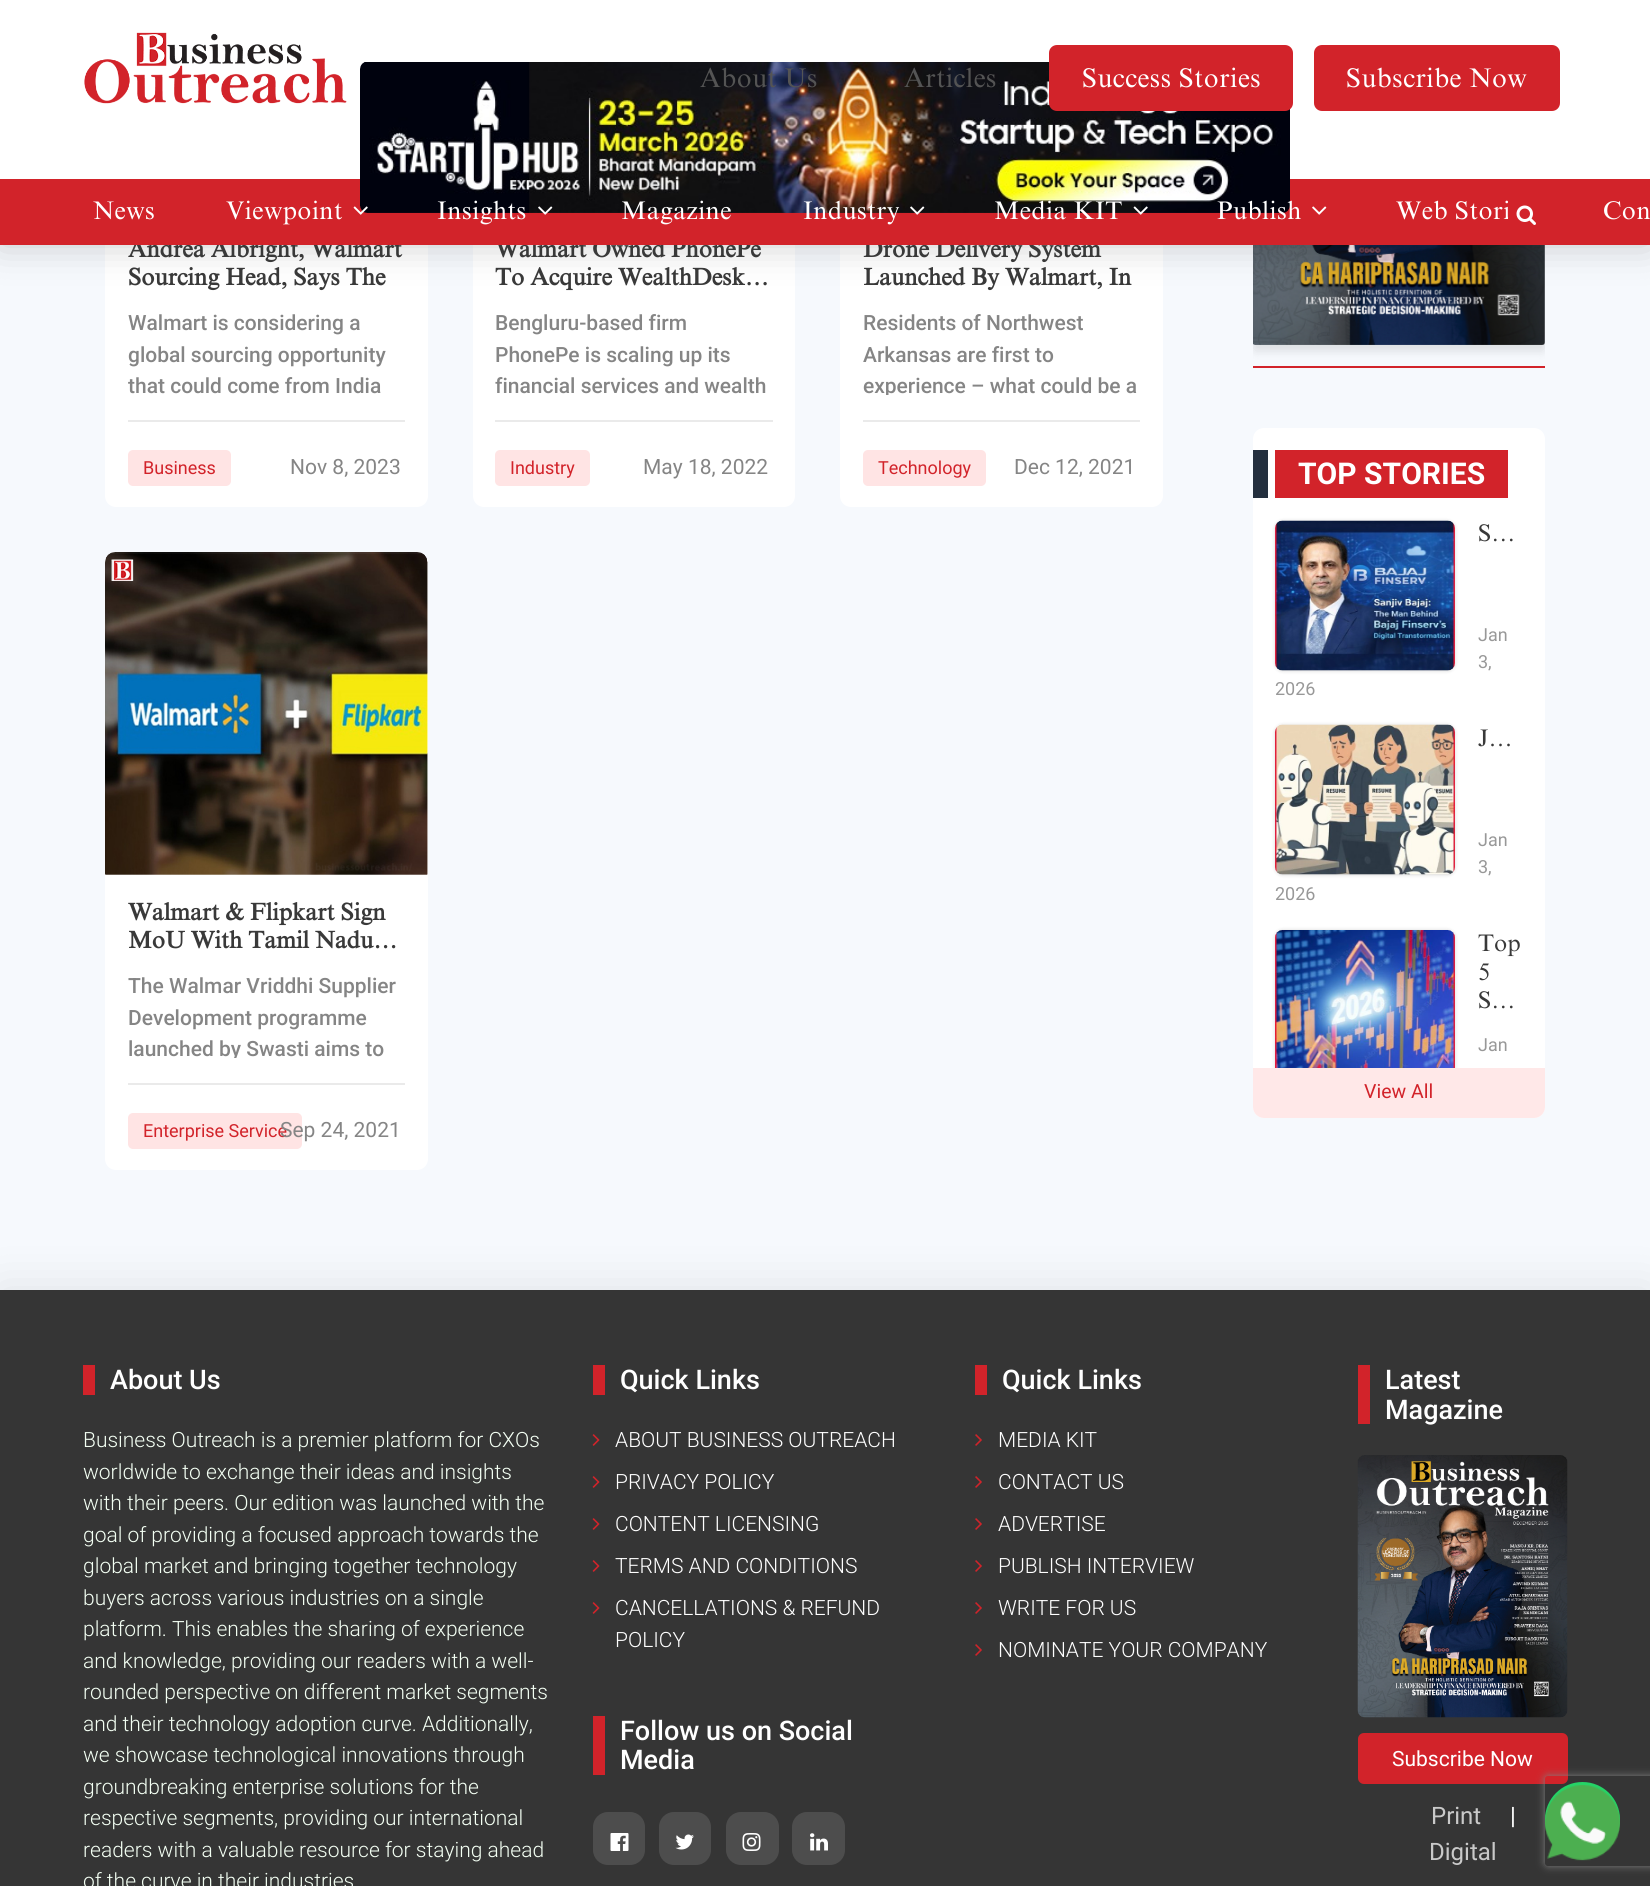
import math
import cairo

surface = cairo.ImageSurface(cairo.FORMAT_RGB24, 1650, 1886)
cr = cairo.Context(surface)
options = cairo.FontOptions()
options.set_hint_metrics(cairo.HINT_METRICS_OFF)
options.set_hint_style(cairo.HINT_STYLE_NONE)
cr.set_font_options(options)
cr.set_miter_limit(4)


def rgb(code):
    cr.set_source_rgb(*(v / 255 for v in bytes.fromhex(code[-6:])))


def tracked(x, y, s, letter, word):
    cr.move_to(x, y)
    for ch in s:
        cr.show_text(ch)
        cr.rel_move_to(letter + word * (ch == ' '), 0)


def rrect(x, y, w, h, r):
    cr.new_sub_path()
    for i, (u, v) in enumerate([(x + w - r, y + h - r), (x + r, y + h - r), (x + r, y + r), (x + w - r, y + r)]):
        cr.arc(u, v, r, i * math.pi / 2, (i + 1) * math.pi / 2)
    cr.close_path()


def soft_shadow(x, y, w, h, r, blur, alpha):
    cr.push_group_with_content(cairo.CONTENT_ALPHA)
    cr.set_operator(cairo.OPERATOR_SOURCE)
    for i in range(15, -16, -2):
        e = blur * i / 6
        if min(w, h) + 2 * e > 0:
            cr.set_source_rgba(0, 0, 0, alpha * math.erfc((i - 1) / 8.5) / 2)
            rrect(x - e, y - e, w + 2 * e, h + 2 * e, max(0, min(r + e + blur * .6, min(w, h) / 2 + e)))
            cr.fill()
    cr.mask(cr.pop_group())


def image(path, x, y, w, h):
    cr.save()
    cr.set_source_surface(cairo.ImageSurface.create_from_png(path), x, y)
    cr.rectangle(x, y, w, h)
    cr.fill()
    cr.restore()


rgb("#f6f9fd")
cr.paint()
rgb("#ffffff")
rrect(105, -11, 323, 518, 11)
cr.fill()
rrect(473, -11, 322, 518, 11)
cr.fill()
rrect(840, -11, 323, 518, 11)
cr.fill()
cr.save()
cr.rectangle(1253, 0, 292, 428)
cr.clip()
rgb("#000000")
soft_shadow(1253, -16, 292, 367, 3, 5, 0.11)
cr.restore()
image("img/11.png", 1253, 245, 292, 100)
rgb("#000000")
soft_shadow(0, 0, 1650, 245, 0, 19, 0.2)
rgb("#ffffff")
cr.rectangle(0, 0, 1650, 179)
cr.fill()
image("img/1.png", 84, 32, 263, 72)
rgb("#d2232a")
rrect(1314, 45, 246, 66, 8)
cr.fill()
rgb("#eaeaea")
cr.rectangle(128, 420, 277, 2)
cr.fill()
rgb("#ffe4e4")
rrect(128, 450, 103, 36, 5)
cr.fill()
rgb("#eaeaea")
cr.rectangle(495, 420, 278, 2)
cr.fill()
rgb("#ffe4e4")
rrect(495, 450, 95, 36, 5)
cr.fill()
rgb("#eaeaea")
cr.rectangle(863, 420, 277, 2)
cr.fill()
rgb("#ffe4e4")
rrect(863, 450, 123, 36, 5)
cr.fill()
rgb("#ffffff")
rrect(105, 552, 323, 618, 11)
cr.fill()
image("img/9.png", 105, 552, 323, 323)
image("img/10.png", 105, 552, 323, 323)
rgb("#eaeaea")
cr.rectangle(128, 1083, 277, 2)
cr.fill()
rgb("#ffe4e4")
rrect(128, 1113, 174, 36, 5)
cr.fill()
rgb("#d2232a")
cr.rectangle(1253, 366, 292, 2)
cr.fill()
rgb("#ffffff")
rrect(1253, 428, 292, 690, 11)
cr.fill()
rgb("#232f3e")
cr.rectangle(1253, 450, 15, 48)
cr.fill()
rgb("#d2232a")
cr.rectangle(1275, 450, 233, 48)
cr.fill()
rgb("#000000")
soft_shadow(1275, 521, 180, 150, 8, 2, 0.15)
rgb("#e3e3e3")
rrect(1275, 521, 180, 150, 8)
cr.fill()
image("img/12.png", 1275, 520, 180, 151)
rgb("#000000")
soft_shadow(1275, 725, 180, 150, 8, 2, 0.15)
rgb("#e3e3e3")
rrect(1275, 725, 180, 150, 8)
cr.fill()
image("img/13.png", 1275, 724, 180, 151)
rgb("#000000")
soft_shadow(1275, 930, 180, 150, 8, 2, 0.15)
image("img/14.png", 1275, 930, 180, 138)
rgb("#ffe8e8")
cr.new_path()
cr.move_to(1253, 1068)
cr.line_to(1545, 1068)
cr.line_to(1545, 1107)
cr.curve_to(1545, 1113, 1540, 1118, 1534, 1118)
cr.line_to(1264, 1118)
cr.curve_to(1258, 1118, 1253, 1113, 1253, 1107)
cr.close_path()
cr.fill()
rgb("#000000")
soft_shadow(0, 1290, 1650, 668, 0, 24, 0.1)
for x, y, w, h, color in [
    (0, 1290, 1650, 596, "#353535"),
    (83, 1365, 12, 30, "#d2232a"),
    (593, 1365, 12, 30, "#d2232a"),
]:
    rgb(color)
    cr.rectangle(x, y, w, h)
    cr.fill()
image("img/15.png", 592, 1434, 8, 12)
image("img/15.png", 592, 1476, 8, 12)
image("img/15.png", 592, 1518, 8, 12)
image("img/15.png", 592, 1560, 8, 12)
image("img/15.png", 592, 1602, 8, 12)
cr.rectangle(593, 1716, 12, 59)
cr.fill()
rgb("#4d4d4d")
rrect(593, 1812, 52, 53, 15)
cr.fill()
image("img/16.png", 610, 1833, 19, 18)
rrect(659, 1812, 52, 53, 15)
cr.fill()
image("img/17.png", 675, 1834, 19, 16)
rrect(726, 1812, 53, 53, 15)
cr.fill()
image("img/18.png", 742, 1833, 19, 18)
rrect(792, 1812, 53, 53, 15)
cr.fill()
image("img/19.png", 810, 1833, 18, 18)
rgb("#d2232a")
cr.rectangle(975, 1365, 12, 30)
cr.fill()
image("img/20.png", 975, 1434, 7, 12)
image("img/20.png", 975, 1476, 7, 12)
image("img/20.png", 975, 1518, 7, 12)
image("img/20.png", 975, 1560, 7, 12)
image("img/20.png", 975, 1602, 7, 12)
image("img/20.png", 975, 1644, 7, 12)
cr.rectangle(1358, 1365, 12, 59)
cr.fill()
image("img/21.png", 1357, 1455, 211, 263)
rrect(1358, 1733, 210, 51, 6)
cr.fill()
cr.save()
cr.set_fill_rule(cairo.FILL_RULE_EVEN_ODD)
cr.new_path()
cr.move_to(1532, 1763)
cr.line_to(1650, 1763)
cr.line_to(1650, 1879)
cr.line_to(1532, 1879)
cr.close_path()
cr.move_to(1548, 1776)
cr.line_to(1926, 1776)
cr.curve_to(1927.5, 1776, 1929, 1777.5, 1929, 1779)
cr.line_to(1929, 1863)
cr.curve_to(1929, 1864.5, 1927.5, 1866, 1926, 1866)
cr.line_to(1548, 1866)
cr.curve_to(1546.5, 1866, 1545, 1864.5, 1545, 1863)
cr.line_to(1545, 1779)
cr.curve_to(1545, 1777.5, 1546.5, 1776, 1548, 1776)
cr.close_path()
cr.clip()
rgb("#808080")
soft_shadow(1545, 1776, 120, 90, 3, 4, 1)
cr.restore()
rgb("#25d366")
cr.arc(1582.5, 1819.5, 37.5, 0, 2 * math.pi)
cr.fill()
image("img/22.png", 1545, 1785, 75, 76)
cr.select_font_face("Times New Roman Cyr")
cr.set_font_size(27)
rgb("#ffffff")
tracked(1346, 87, "Subscribe Now", 0.5, 0)
cr.select_font_face("Times New Roman Cyr", cairo.FONT_SLANT_NORMAL, cairo.FONT_WEIGHT_BOLD)
cr.set_font_size(24)
rgb("#393939")
cr.move_to(128, 257)
cr.show_text("Andrea Albright, Walmart")
cr.move_to(128, 285)
cr.show_text("Sourcing Head, Says The")
cr.select_font_face("Roboto Medium")
cr.set_font_size(21)
rgb("#858585")
for x, y, s in [
    (128, 330, "Walmart is considering a"),
    (128, 362, "global sourcing opportunity"),
    (128, 393, "that could come from India"),
]:
    cr.move_to(x, y)
    cr.show_text(s)
cr.select_font_face("Roboto")
cr.set_font_size(18)
rgb("#d2232a")
cr.move_to(143, 474)
cr.show_text("Business")
cr.set_font_size(21)
rgb("#858585")
cr.move_to(290, 474)
cr.show_text("Nov 8, 2023")
cr.select_font_face("Times New Roman Cyr", cairo.FONT_SLANT_NORMAL, cairo.FONT_WEIGHT_BOLD)
cr.set_font_size(24)
rgb("#393939")
cr.move_to(495, 257)
cr.show_text("Walmart Owned PhonePe")
cr.move_to(495, 285)
cr.show_text("To Acquire WealthDesk…")
cr.select_font_face("Roboto Medium")
cr.set_font_size(21)
rgb("#858585")
for x, y, s in [
    (495, 330, "Bengluru-based firm"),
    (495, 362, "PhonePe is scaling up its"),
    (495, 393, "financial services and wealth"),
]:
    cr.move_to(x, y)
    cr.show_text(s)
cr.select_font_face("Roboto")
cr.set_font_size(18)
rgb("#d2232a")
cr.move_to(510, 474)
cr.show_text("Industry")
cr.set_font_size(21)
rgb("#858585")
cr.move_to(643, 474)
cr.show_text("May 18, 2022")
cr.select_font_face("Times New Roman Cyr", cairo.FONT_SLANT_NORMAL, cairo.FONT_WEIGHT_BOLD)
cr.set_font_size(24)
rgb("#393939")
cr.move_to(863, 257)
cr.show_text("Drone Delivery System")
rgb("#d2232a")
cr.rectangle(0, 179, 1650, 66)
cr.fill()
image("img/8.png", 1516, 205, 20, 20)
cr.select_font_face("Times New Roman Cyr")
cr.set_font_size(25.5)
rgb("#ffffff")
tracked(1396, 219, "Web Stori", 0.5, 0)
rgb("#d2232a")
cr.rectangle(1508, 218, 2, 1)
cr.fill()
rgb("#ffffff")
tracked(1603, 219, "Con", 0.5, 0)
image("img/7.png", 1312, 206, 15, 9)
image("img/2.png", 360, 62, 930, 151)
tracked(1217, 219, "Publish", 0.5, 0)
image("img/6.png", 1133, 206, 15, 9)
tracked(994, 219, "Media KIT", 0.5, 0)
image("img/5.png", 910, 206, 15, 9)
tracked(803, 219, "Industry", 0.5, 0)
tracked(621, 219, "Magazine", 0.5, 0)
image("img/4.png", 538, 206, 15, 9)
tracked(437, 219, "Insights", 0.5, 0)
image("img/3.png", 353, 206, 15, 9)
tracked(226, 219, "Viewpoint", 0.5, 0)
tracked(93, 219, "News", 0.5, 0)
rgb("#d2232a")
rrect(1049, 45, 244, 66, 8)
cr.fill()
cr.set_font_size(27)
rgb("#ffffff")
tracked(1082, 87, "Success Stories", 0.5, 0)
rgb("#545454")
tracked(904, 87, "Articles", 0.5, 0)
tracked(700, 87, "About Us", 0.5, 0)
cr.select_font_face("Times New Roman Cyr", cairo.FONT_SLANT_NORMAL, cairo.FONT_WEIGHT_BOLD)
cr.set_font_size(24)
rgb("#393939")
cr.move_to(863, 285)
cr.show_text("Launched By Walmart, In")
cr.select_font_face("Roboto Medium")
cr.set_font_size(21)
rgb("#858585")
cr.move_to(863, 330)
cr.show_text("Residents of Northwest")
cr.move_to(863, 362)
cr.show_text("Arkansas are first to")
cr.save()
cr.rectangle(863, 308, 277, 87)
cr.clip()
cr.move_to(863, 393)
cr.show_text("experience – what could be a")
cr.restore()
cr.select_font_face("Roboto")
cr.set_font_size(18)
rgb("#d2232a")
cr.move_to(878, 474)
cr.show_text("Technology")
cr.set_font_size(21)
rgb("#858585")
cr.move_to(1014, 474)
cr.show_text("Dec 12, 2021")
cr.select_font_face("Times New Roman Cyr", cairo.FONT_SLANT_NORMAL, cairo.FONT_WEIGHT_BOLD)
cr.set_font_size(24)
rgb("#393939")
cr.move_to(128, 920)
cr.show_text("Walmart & Flipkart Sign")
cr.move_to(128, 948)
cr.show_text("MoU With Tamil Nadu…")
cr.select_font_face("Roboto Medium")
cr.set_font_size(21)
rgb("#858585")
cr.move_to(128, 993)
cr.show_text("The Walmar Vriddhi Supplier")
cr.move_to(128, 1025)
cr.show_text("Development programme")
cr.save()
cr.rectangle(128, 971, 277, 87)
cr.clip()
cr.move_to(128, 1056)
cr.show_text("launched by Swasti aims to")
cr.restore()
cr.select_font_face("Roboto")
cr.set_font_size(18)
rgb("#d2232a")
cr.move_to(143, 1137)
cr.show_text("Enterprise Service")
cr.set_font_size(21)
rgb("#858585")
cr.move_to(280, 1137)
cr.show_text("Sep 24, 2021")
cr.select_font_face("Roboto", cairo.FONT_SLANT_NORMAL, cairo.FONT_WEIGHT_BOLD)
cr.set_font_size(30)
rgb("#ffffff")
cr.move_to(1298, 484)
cr.show_text("TOP STORIES")
cr.select_font_face("Times New Roman Cyr")
cr.set_font_size(24)
rgb("#393939")
cr.move_to(1478, 541)
cr.show_text("S…")
cr.select_font_face("Roboto")
cr.set_font_size(18)
rgb("#989898")
for x, y, s in [
    (1478, 641, "Jan"),
    (1478, 668, "3,"),
    (1275, 695, "2026"),
]:
    cr.move_to(x, y)
    cr.show_text(s)
cr.select_font_face("Times New Roman Cyr")
cr.set_font_size(24)
rgb("#393939")
cr.move_to(1478, 746)
cr.show_text("J…")
cr.select_font_face("Roboto")
cr.set_font_size(18)
rgb("#989898")
for x, y, s in [
    (1478, 846, "Jan"),
    (1478, 873, "3,"),
    (1275, 900, "2026"),
]:
    cr.move_to(x, y)
    cr.show_text(s)
cr.select_font_face("Times New Roman Cyr")
cr.set_font_size(24)
rgb("#393939")
for x, y, s in [
    (1478, 951, "Top"),
    (1478, 980, "5"),
    (1478, 1008, "S…"),
]:
    cr.move_to(x, y)
    cr.show_text(s)
cr.select_font_face("Roboto")
cr.set_font_size(18)
rgb("#989898")
cr.move_to(1478, 1051)
cr.show_text("Jan")
cr.set_font_size(19.5)
rgb("#d2232a")
cr.move_to(1364, 1098)
cr.show_text("View All")
cr.select_font_face("Roboto Medium")
cr.set_font_size(27)
rgb("#ffffff")
cr.move_to(110, 1389)
cr.show_text("About Us")
cr.select_font_face("Roboto Light")
cr.set_font_size(21)
rgb("#f3fff3")
for x, y, s in [
    (83, 1447, "Business Outreach is a premier platform for CXOs"),
    (83, 1479, "worldwide to exchange their ideas and insights"),
    (83, 1510, "with their peers. Our edition was launched with the"),
    (83, 1542, "goal of providing a focused approach towards the"),
    (83, 1573, "global market and bringing together technology"),
    (83, 1605, "buyers across various industries on a single"),
    (83, 1636, "platform. This enables the sharing of experience"),
    (83, 1668, "and knowledge, providing our readers with a well-"),
    (83, 1699, "rounded perspective on different market segments"),
    (83, 1731, "and their technology adoption curve. Additionally,"),
    (83, 1762, "we showcase technological innovations through"),
    (83, 1794, "groundbreaking enterprise solutions for the"),
    (83, 1825, "respective segments, providing our international"),
    (83, 1857, "readers with a valuable resource for staying ahead"),
    (83, 1888, "of the curve in their industries"),
]:
    cr.move_to(x, y)
    cr.show_text(s)
cr.select_font_face("Roboto Medium")
cr.set_font_size(27)
rgb("#ffffff")
cr.move_to(620, 1389)
cr.show_text("Quick Links")
cr.select_font_face("Roboto Light")
cr.set_font_size(21)
for x, y, s in [
    (615, 1447, "ABOUT BUSINESS OUTREACH"),
    (615, 1489, "PRIVACY POLICY"),
    (615, 1531, "CONTENT LICENSING"),
    (615, 1573, "TERMS AND CONDITIONS"),
    (615, 1615, "CANCELLATIONS & REFUND"),
    (615, 1647, "POLICY"),
]:
    cr.move_to(x, y)
    cr.show_text(s)
cr.select_font_face("Roboto Medium")
cr.set_font_size(27)
for x, y, s in [
    (620, 1740, "Follow us on Social"),
    (620, 1769, "Media"),
    (1002, 1389, "Quick Links"),
]:
    cr.move_to(x, y)
    cr.show_text(s)
cr.select_font_face("Roboto Light")
cr.set_font_size(21)
for x, y, s in [
    (998, 1447, "MEDIA KIT"),
    (998, 1489, "CONTACT US"),
    (998, 1531, "ADVERTISE"),
    (998, 1573, "PUBLISH INTERVIEW"),
    (998, 1615, "WRITE FOR US"),
    (998, 1657, "NOMINATE YOUR COMPANY"),
]:
    cr.move_to(x, y)
    cr.show_text(s)
cr.select_font_face("Roboto Medium")
cr.set_font_size(27)
cr.move_to(1385, 1389)
cr.show_text("Latest")
cr.move_to(1385, 1419)
cr.show_text("Magazine")
cr.select_font_face("Roboto")
cr.set_font_size(21)
cr.move_to(1392, 1766)
cr.show_text("Subscribe Now")
cr.set_font_size(24)
rgb("#c9c9c9")
cr.move_to(1431, 1824)
cr.show_text("Print")
rgb("#ffffff")
cr.move_to(1510, 1824)
cr.show_text("|")
rgb("#c9c9c9")
cr.move_to(1429, 1860)
cr.show_text("Digital")
surface.write_to_png("page.png")
